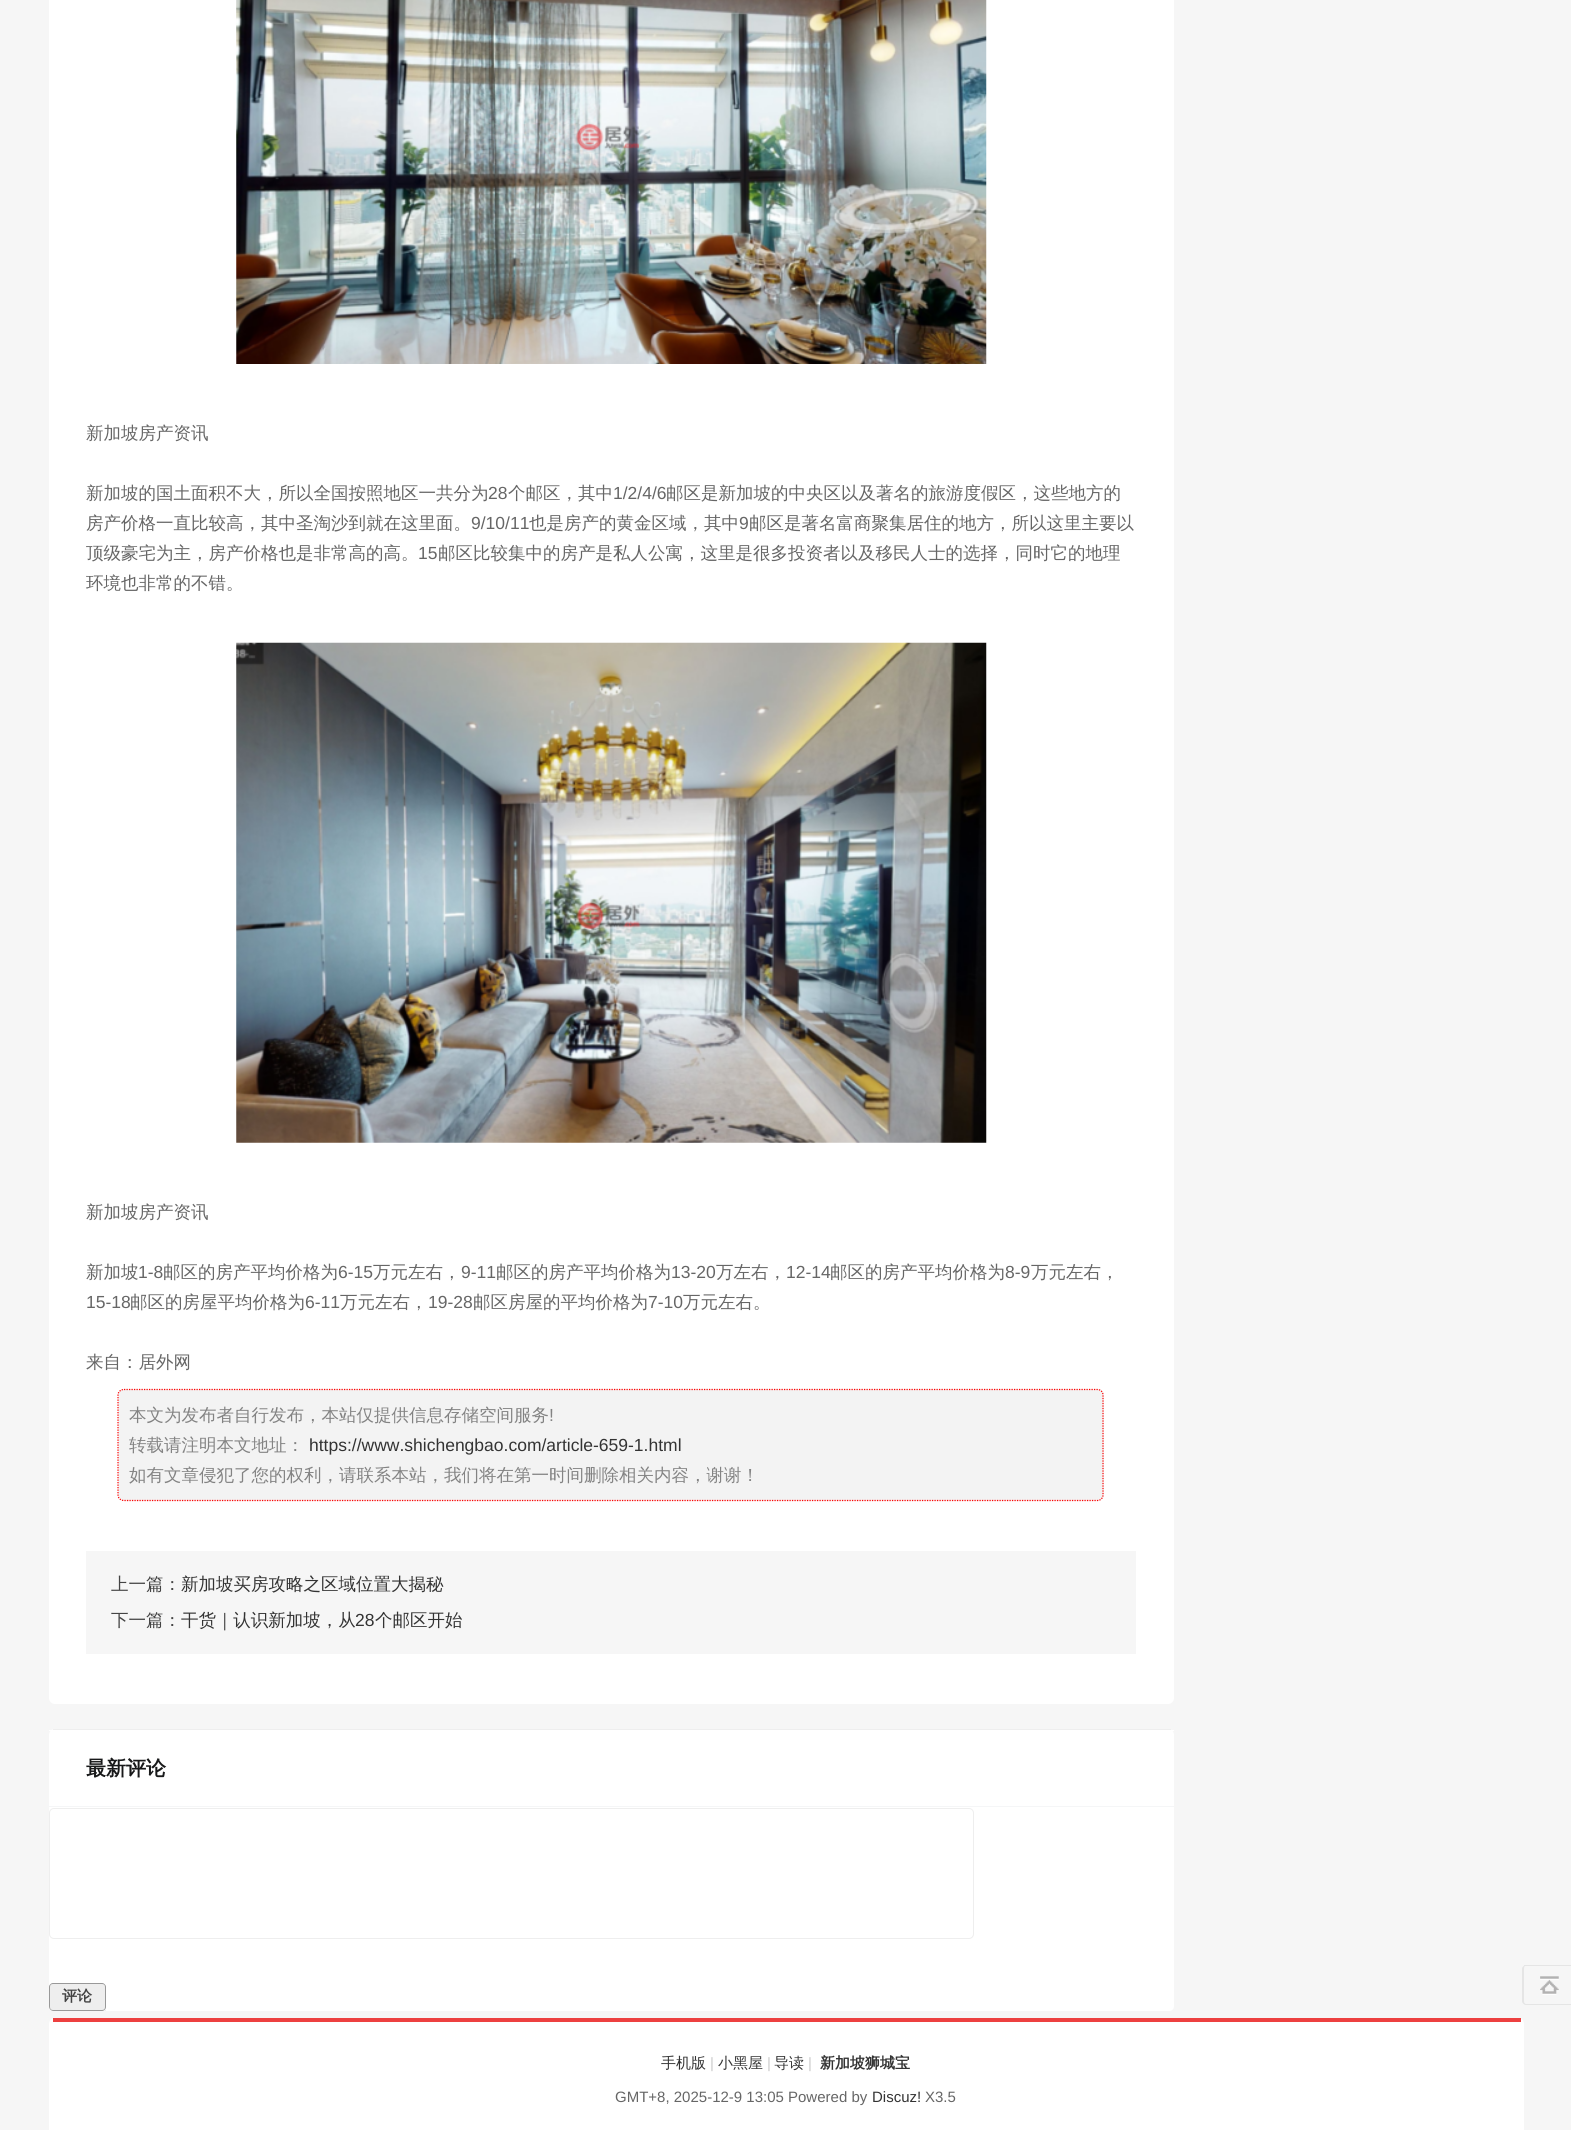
import math
import cairo

surface = cairo.ImageSurface(cairo.FORMAT_RGB24, 1571, 2130)
cr = cairo.Context(surface)
options = cairo.FontOptions()
options.set_hint_metrics(cairo.HINT_METRICS_OFF)
options.set_hint_style(cairo.HINT_STYLE_NONE)
cr.set_font_options(options)
cr.set_miter_limit(4)


def rgb(code):
    cr.set_source_rgb(*(v / 255 for v in bytes.fromhex(code[-6:])))


def rrect(x, y, w, h, r):
    cr.new_sub_path()
    for i, (u, v) in enumerate([(x + w - r, y + h - r), (x + r, y + h - r), (x + r, y + r), (x + w - r, y + r)]):
        cr.arc(u, v, r, i * math.pi / 2, (i + 1) * math.pi / 2)
    cr.close_path()


def image(path, x, y, w, h):
    cr.save()
    cr.set_source_surface(cairo.ImageSurface.create_from_png(path), x, y)
    cr.rectangle(x, y, w, h)
    cr.fill()
    cr.restore()


rgb("#f6f6f6")
cr.paint()
rgb("#ffffff")
rrect(49, -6, 1125, 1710, 6)
cr.fill()
image("img/1.png", 236, 0, 751, 364)
image("img/2.png", 236, 642, 751, 501)
rgb("#f3f3f3")
rrect(118, 1389, 986, 112, 6)
cr.fill()
cr.new_path()
cr.move_to(124, 1389.5)
cr.line_to(1097.5, 1389.5)
cr.curve_to(1100.5, 1389.5, 1103, 1392, 1103, 1395)
cr.line_to(1103, 1495)
cr.curve_to(1103, 1498, 1100.5, 1500.5, 1097.5, 1500.5)
cr.line_to(124, 1500.5)
cr.curve_to(120.5, 1500.5, 118, 1498, 118, 1495)
cr.line_to(118, 1395)
cr.curve_to(118, 1392, 120.5, 1389.5, 124, 1389.5)
cr.close_path()
rgb("#ff0000")
cr.set_line_width(1.2)
cr.set_dash([1.25, 1.25])
cr.stroke()
rgb("#f6f6f6")
cr.rectangle(86, 1551, 1050, 103)
cr.fill()
rgb("#ffffff")
cr.new_path()
cr.move_to(55, 1729)
cr.line_to(1168, 1729)
cr.curve_to(1171.5, 1729, 1174, 1731.5, 1174, 1735)
cr.line_to(1174, 2006)
cr.curve_to(1174, 2009, 1172, 2011, 1169, 2011)
cr.line_to(54, 2011)
cr.curve_to(51, 2011, 49, 2009, 49, 2006)
cr.line_to(49, 1735)
cr.curve_to(49, 1731.5, 51.5, 1729, 55, 1729)
cr.close_path()
cr.fill()
for x, y, w, h, color in [
    (53, 1729, 1118, 1, "#eeeeee"),
    (49, 1730, 1125, 1, "#ffffff"),
    (49, 1806, 1125, 1, "#f5f6f7"),
]:
    rgb(color)
    cr.rectangle(x, y, w, h)
    cr.fill()
rrect(49.5, 1808.5, 924, 130, 4.5)
rgb("#eeeeee")
cr.set_line_width(1)
cr.set_dash([])
cr.stroke()
rgb("#e5e5e5")
cr.new_path()
cr.move_to(104, 2011)
cr.line_to(105.5, 2011)
cr.line_to(106, 2009)
cr.curve_to(105.5, 2010, 105, 2010.5, 104, 2011)
cr.close_path()
cr.fill()
rgb("#eeeeee")
cr.new_path()
cr.move_to(53, 1983)
cr.line_to(102, 1983)
cr.curve_to(104, 1983, 106, 1985, 106, 1987)
cr.line_to(106, 2007)
cr.curve_to(106, 2009, 104, 2011, 102, 2011)
cr.line_to(54, 2011)
cr.curve_to(51, 2011, 49, 2009, 49, 2006)
cr.line_to(49, 1987)
cr.curve_to(49, 1985, 51, 1983, 53, 1983)
cr.close_path()
cr.fill()
rgb("#999999")
cr.set_fill_rule(cairo.FILL_RULE_EVEN_ODD)
cr.new_path()
cr.move_to(53, 1983)
cr.curve_to(51, 1983, 49, 1985, 49, 1987)
cr.line_to(49, 2006)
cr.curve_to(49, 2009, 51, 2011, 54, 2011)
cr.line_to(102, 2011)
cr.curve_to(104, 2011, 106, 2009, 106, 2007)
cr.line_to(106, 1987)
cr.curve_to(106, 1985, 104, 1983, 102, 1983)
cr.close_path()
cr.move_to(53, 1984)
cr.curve_to(51, 1984, 50, 1985, 50, 1987)
cr.line_to(50, 2007)
cr.curve_to(50, 2009, 51, 2010, 53, 2010)
cr.line_to(102, 2010)
cr.curve_to(104, 2010, 105, 2009, 105, 2007)
cr.line_to(105, 1987)
cr.curve_to(105, 1985, 104, 1984, 102, 1984)
cr.close_path()
cr.fill()
rgb("#e5e5e5")
cr.new_path()
cr.move_to(1526, 1965)
cr.line_to(1571, 1965)
cr.curve_to(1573, 1965, 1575, 1967, 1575, 1969)
cr.line_to(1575, 2001)
cr.curve_to(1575, 2003, 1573, 2005, 1571, 2005)
cr.line_to(1526, 2005)
cr.curve_to(1524, 2005, 1522, 2003, 1522, 2001)
cr.line_to(1522, 1969)
cr.curve_to(1522, 1967, 1524, 1965, 1526, 1965)
cr.close_path()
cr.move_to(1526, 1965)
cr.line_to(1571, 1965)
cr.curve_to(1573, 1965, 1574, 1967, 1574, 1969)
cr.line_to(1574, 2001)
cr.curve_to(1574, 2003, 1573, 2004, 1571, 2004)
cr.line_to(1526, 2004)
cr.curve_to(1525, 2004, 1524, 2003, 1524, 2001)
cr.line_to(1524, 1969)
cr.curve_to(1524, 1967, 1525, 1965, 1526, 1965)
cr.close_path()
cr.fill()
image("img/3.png", 1540, 1976, 19, 19)
cr.rectangle(1524, 1965, 47, 1)
cr.fill()
rgb("#ffffff")
cr.new_path()
cr.move_to(55, 2018)
cr.line_to(1518, 2018)
cr.curve_to(1521.5, 2018, 1524, 2020.5, 1524, 2024)
cr.line_to(1524, 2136)
cr.line_to(49, 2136)
cr.line_to(49, 2024)
cr.curve_to(49, 2020.5, 51.5, 2018, 55, 2018)
cr.close_path()
cr.fill()
rgb("#ed4040")
cr.rectangle(53, 2018, 1468, 4)
cr.fill()
cr.select_font_face("WenQuanYi Zen Hei Medium")
cr.set_font_size(17.5)
rgb("#666666")
cr.move_to(86, 439)
cr.show_text("新加坡房产资讯")
cr.move_to(86, 499)
cr.show_text("新加坡的国土面积不大，所以全国按照地区一共分为")
cr.select_font_face("Liberation Sans")
cr.move_to(488, 499)
cr.show_text("28")
cr.select_font_face("WenQuanYi Zen Hei Medium")
cr.move_to(508, 499)
cr.show_text("个邮区，其中")
cr.select_font_face("Liberation Sans")
cr.move_to(613, 499)
cr.show_text("1/2/4/6")
cr.select_font_face("WenQuanYi Zen Hei Medium")
cr.move_to(666, 499)
cr.show_text("邮区是新加坡的中央区以及著名的旅游度假区，这些地方的")
cr.move_to(86, 529)
cr.show_text("房产价格一直比较高，其中圣淘沙到就在这里面。")
cr.select_font_face("Liberation Sans")
cr.move_to(471, 529)
cr.show_text("9/10/11")
cr.select_font_face("WenQuanYi Zen Hei Medium")
cr.move_to(529, 529)
cr.show_text("也是房产的黄金区域，其中")
cr.select_font_face("Liberation Sans")
cr.move_to(739, 529)
cr.show_text("9")
cr.select_font_face("WenQuanYi Zen Hei Medium")
cr.move_to(749, 529)
cr.show_text("邮区是著名富商聚集居住的地方，所以这里主要以")
cr.move_to(86, 559)
cr.show_text("顶级豪宅为主，房产价格也是非常高的高。")
cr.select_font_face("Liberation Sans")
cr.move_to(418, 559)
cr.show_text("15")
cr.select_font_face("WenQuanYi Zen Hei Medium")
for x, y, s in [
    (438, 559, "邮区比较集中的房产是私人公寓，这里是很多投资者以及移民人士的选择，同时它的地理"),
    (86, 589, "环境也非常的不错。"),
    (86, 1218, "新加坡房产资讯"),
    (86, 1278, "新加坡"),
]:
    cr.move_to(x, y)
    cr.show_text(s)
cr.select_font_face("Liberation Sans")
cr.move_to(138, 1278)
cr.show_text("1-8")
cr.select_font_face("WenQuanYi Zen Hei Medium")
cr.move_to(163, 1278)
cr.show_text("邮区的房产平均价格为")
cr.select_font_face("Liberation Sans")
cr.move_to(338, 1278)
cr.show_text("6-15")
cr.select_font_face("WenQuanYi Zen Hei Medium")
cr.move_to(373, 1278)
cr.show_text("万元左右，")
cr.select_font_face("Liberation Sans")
cr.move_to(461, 1278)
cr.show_text("9-11")
cr.select_font_face("WenQuanYi Zen Hei Medium")
cr.move_to(496, 1278)
cr.show_text("邮区的房产平均价格为")
cr.select_font_face("Liberation Sans")
cr.move_to(671, 1278)
cr.show_text("13-20")
cr.select_font_face("WenQuanYi Zen Hei Medium")
cr.move_to(716, 1278)
cr.show_text("万左右，")
cr.select_font_face("Liberation Sans")
cr.move_to(786, 1278)
cr.show_text("12-14")
cr.select_font_face("WenQuanYi Zen Hei Medium")
cr.move_to(830, 1278)
cr.show_text("邮区的房产平均价格为")
cr.select_font_face("Liberation Sans")
cr.move_to(1005, 1278)
cr.show_text("8-9")
cr.select_font_face("WenQuanYi Zen Hei Medium")
cr.move_to(1031, 1278)
cr.show_text("万元左右，")
cr.select_font_face("Liberation Sans")
cr.move_to(86, 1308)
cr.show_text("15-18")
cr.select_font_face("WenQuanYi Zen Hei Medium")
cr.move_to(130, 1308)
cr.show_text("邮区的房屋平均价格为")
cr.select_font_face("Liberation Sans")
cr.move_to(305, 1308)
cr.show_text("6-11")
cr.select_font_face("WenQuanYi Zen Hei Medium")
cr.move_to(340, 1308)
cr.show_text("万元左右，")
cr.select_font_face("Liberation Sans")
cr.move_to(428, 1308)
cr.show_text("19-28")
cr.select_font_face("WenQuanYi Zen Hei Medium")
cr.move_to(473, 1308)
cr.show_text("邮区房屋的平均价格为")
cr.select_font_face("Liberation Sans")
cr.move_to(648, 1308)
cr.show_text("7-10")
cr.select_font_face("WenQuanYi Zen Hei Medium")
cr.move_to(683, 1308)
cr.show_text("万元左右。")
cr.move_to(86, 1368)
cr.show_text("来自：居外网")
rgb("#838383")
cr.move_to(129, 1421)
cr.show_text("本文为发布者自行发布，本站仅提供信息存储空间服务")
cr.select_font_face("Liberation Sans")
cr.move_to(549, 1421)
cr.show_text("!")
cr.select_font_face("WenQuanYi Zen Hei Medium")
cr.move_to(129, 1451)
cr.show_text("转载请注明本文地址：")
cr.select_font_face("Liberation Sans")
rgb("#333333")
cr.move_to(309, 1451)
cr.show_text("https://www.shichengbao.com/article-659-1.html")
cr.select_font_face("WenQuanYi Zen Hei Medium")
rgb("#838383")
cr.move_to(129, 1481)
cr.show_text("如有文章侵犯了您的权利，请联系本站，我们将在第一时间删除相关内容，谢谢！")
rgb("#444444")
cr.move_to(111, 1590)
cr.show_text("上一篇：")
rgb("#333333")
cr.move_to(181, 1590)
cr.show_text("新加坡买房攻略之区域位置大揭秘")
rgb("#444444")
cr.move_to(111, 1626)
cr.show_text("下一篇：")
rgb("#333333")
cr.move_to(181, 1626)
cr.show_text("干货｜认识新加坡，从")
cr.select_font_face("Liberation Sans")
cr.move_to(355, 1626)
cr.show_text("28")
cr.select_font_face("WenQuanYi Zen Hei Medium")
cr.move_to(375, 1626)
cr.show_text("个邮区开始")
cr.select_font_face("WenQuanYi Zen Hei", cairo.FONT_SLANT_NORMAL, cairo.FONT_WEIGHT_BOLD)
cr.set_font_size(20)
rgb("#18191a")
cr.move_to(86, 1775)
cr.show_text("最新评论")
cr.set_font_size(15)
rgb("#444444")
cr.move_to(62, 2001)
cr.show_text("评论")
cr.select_font_face("WenQuanYi Zen Hei Medium")
rgb("#333333")
cr.move_to(661, 2068)
cr.show_text("手机版")
cr.select_font_face("Liberation Sans")
rgb("#cccccc")
cr.move_to(710, 2068)
cr.show_text("|")
cr.select_font_face("WenQuanYi Zen Hei Medium")
rgb("#333333")
cr.move_to(718, 2068)
cr.show_text("小黑屋")
cr.select_font_face("Liberation Sans")
rgb("#cccccc")
cr.move_to(767, 2068)
cr.show_text("|")
cr.select_font_face("WenQuanYi Zen Hei Medium")
rgb("#333333")
cr.move_to(774, 2068)
cr.show_text("导读")
cr.select_font_face("Liberation Sans")
rgb("#cccccc")
cr.move_to(808, 2068)
cr.show_text("|")
cr.select_font_face("WenQuanYi Zen Hei", cairo.FONT_SLANT_NORMAL, cairo.FONT_WEIGHT_BOLD)
rgb("#333333")
cr.move_to(820, 2068)
cr.show_text("新加坡狮城宝")
cr.select_font_face("Liberation Sans")
rgb("#666666")
cr.move_to(615, 2102)
cr.show_text("GMT+8, 2025-12-9 13:05 Powered by")
rgb("#333333")
cr.move_to(872, 2102)
cr.show_text("Discuz!")
rgb("#666666")
cr.move_to(925, 2102)
cr.show_text("X3.5")
surface.write_to_png("page.png")
